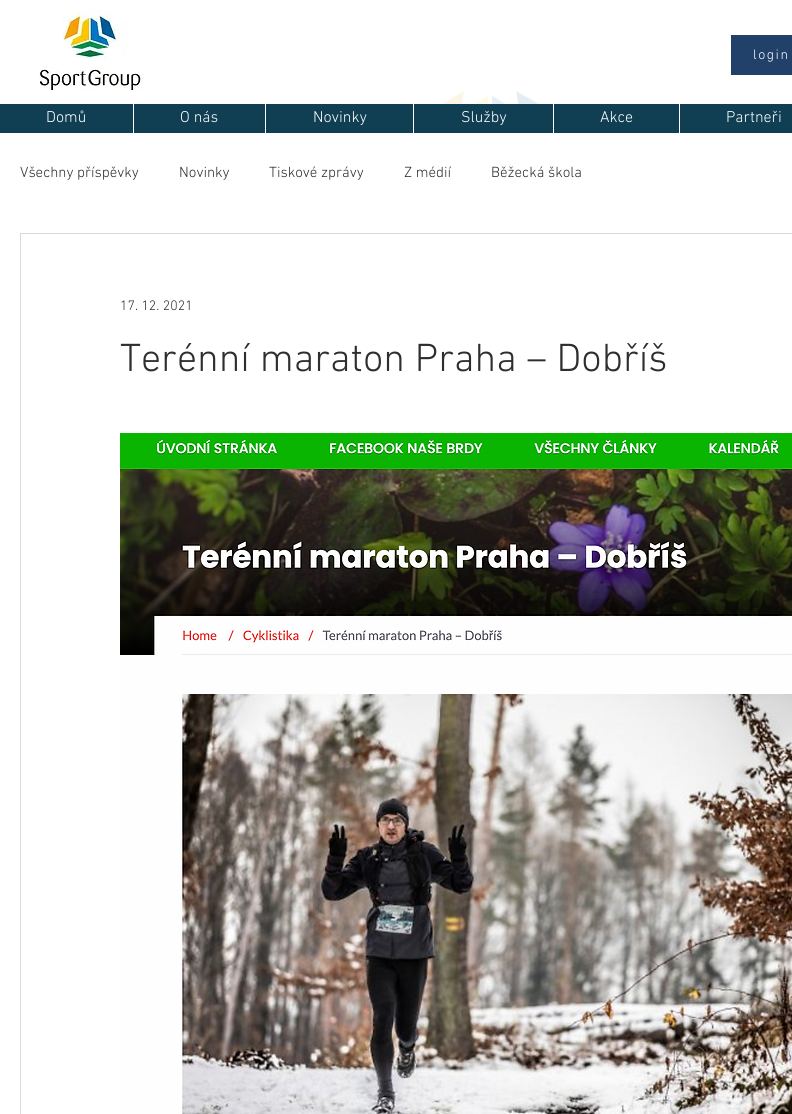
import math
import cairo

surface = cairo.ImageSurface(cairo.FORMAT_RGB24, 792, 1114)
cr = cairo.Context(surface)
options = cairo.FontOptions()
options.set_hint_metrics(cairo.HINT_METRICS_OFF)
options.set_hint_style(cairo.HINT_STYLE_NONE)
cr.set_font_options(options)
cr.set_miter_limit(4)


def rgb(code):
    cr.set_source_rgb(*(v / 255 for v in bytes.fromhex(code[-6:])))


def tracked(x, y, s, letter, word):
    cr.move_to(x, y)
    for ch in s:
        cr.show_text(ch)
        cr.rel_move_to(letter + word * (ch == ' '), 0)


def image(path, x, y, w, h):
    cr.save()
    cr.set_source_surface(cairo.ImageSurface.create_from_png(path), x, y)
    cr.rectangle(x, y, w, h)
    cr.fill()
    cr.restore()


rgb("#ffffff")
cr.paint()
image("img/1.png", 39, 10, 104, 80)
for x, y, w, h, color in [
    (731, 35, 61, 40, "#21406a"),
    (0, 104, 792, 29, "#103f54"),
    (133, 104, 1, 29, "#ffffff"),
    (265, 104, 1, 29, "#ffffff"),
    (413, 104, 1, 29, "#ffffff"),
    (553, 104, 1, 29, "#ffffff"),
    (679, 104, 1, 29, "#ffffff"),
]:
    rgb(color)
    cr.rectangle(x, y, w, h)
    cr.fill()
cr.rectangle(20.5, 233.5, 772, 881)
rgb("#d9d9d9")
cr.set_line_width(1)
cr.stroke()
image("img/2.png", 120, 433, 672, 681)
image("img/3.png", 358, 91, 265, 13)
cr.select_font_face("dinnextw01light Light")
cr.set_font_size(14)
rgb("#ffffff")
tracked(753, 59, "login", 1.5, 0)
cr.set_font_size(16)
for x, y, s in [
    (46, 122, "Domů"),
    (180, 122, "O nás"),
    (313, 122, "Novinky"),
    (461, 122, "Služby"),
    (600, 122, "Akce"),
    (726, 122, "Partneři"),
]:
    cr.move_to(x, y)
    cr.show_text(s)
cr.set_font_size(15)
rgb("#2f2e2e")
for x, y, s in [
    (20, 177, "Všechny příspěvky"),
    (179, 177, "Novinky"),
    (269, 177, "Tiskové zprávy"),
    (404, 177, "Z médií"),
    (491, 177, "Běžecká škola"),
]:
    cr.move_to(x, y)
    cr.show_text(s)
cr.set_font_size(14)
cr.move_to(120, 310)
cr.show_text("17. 12. 2021")
cr.set_font_size(40)
cr.move_to(120, 371)
cr.show_text("Terénní maraton Praha – Dobříš")
surface.write_to_png("page.png")
